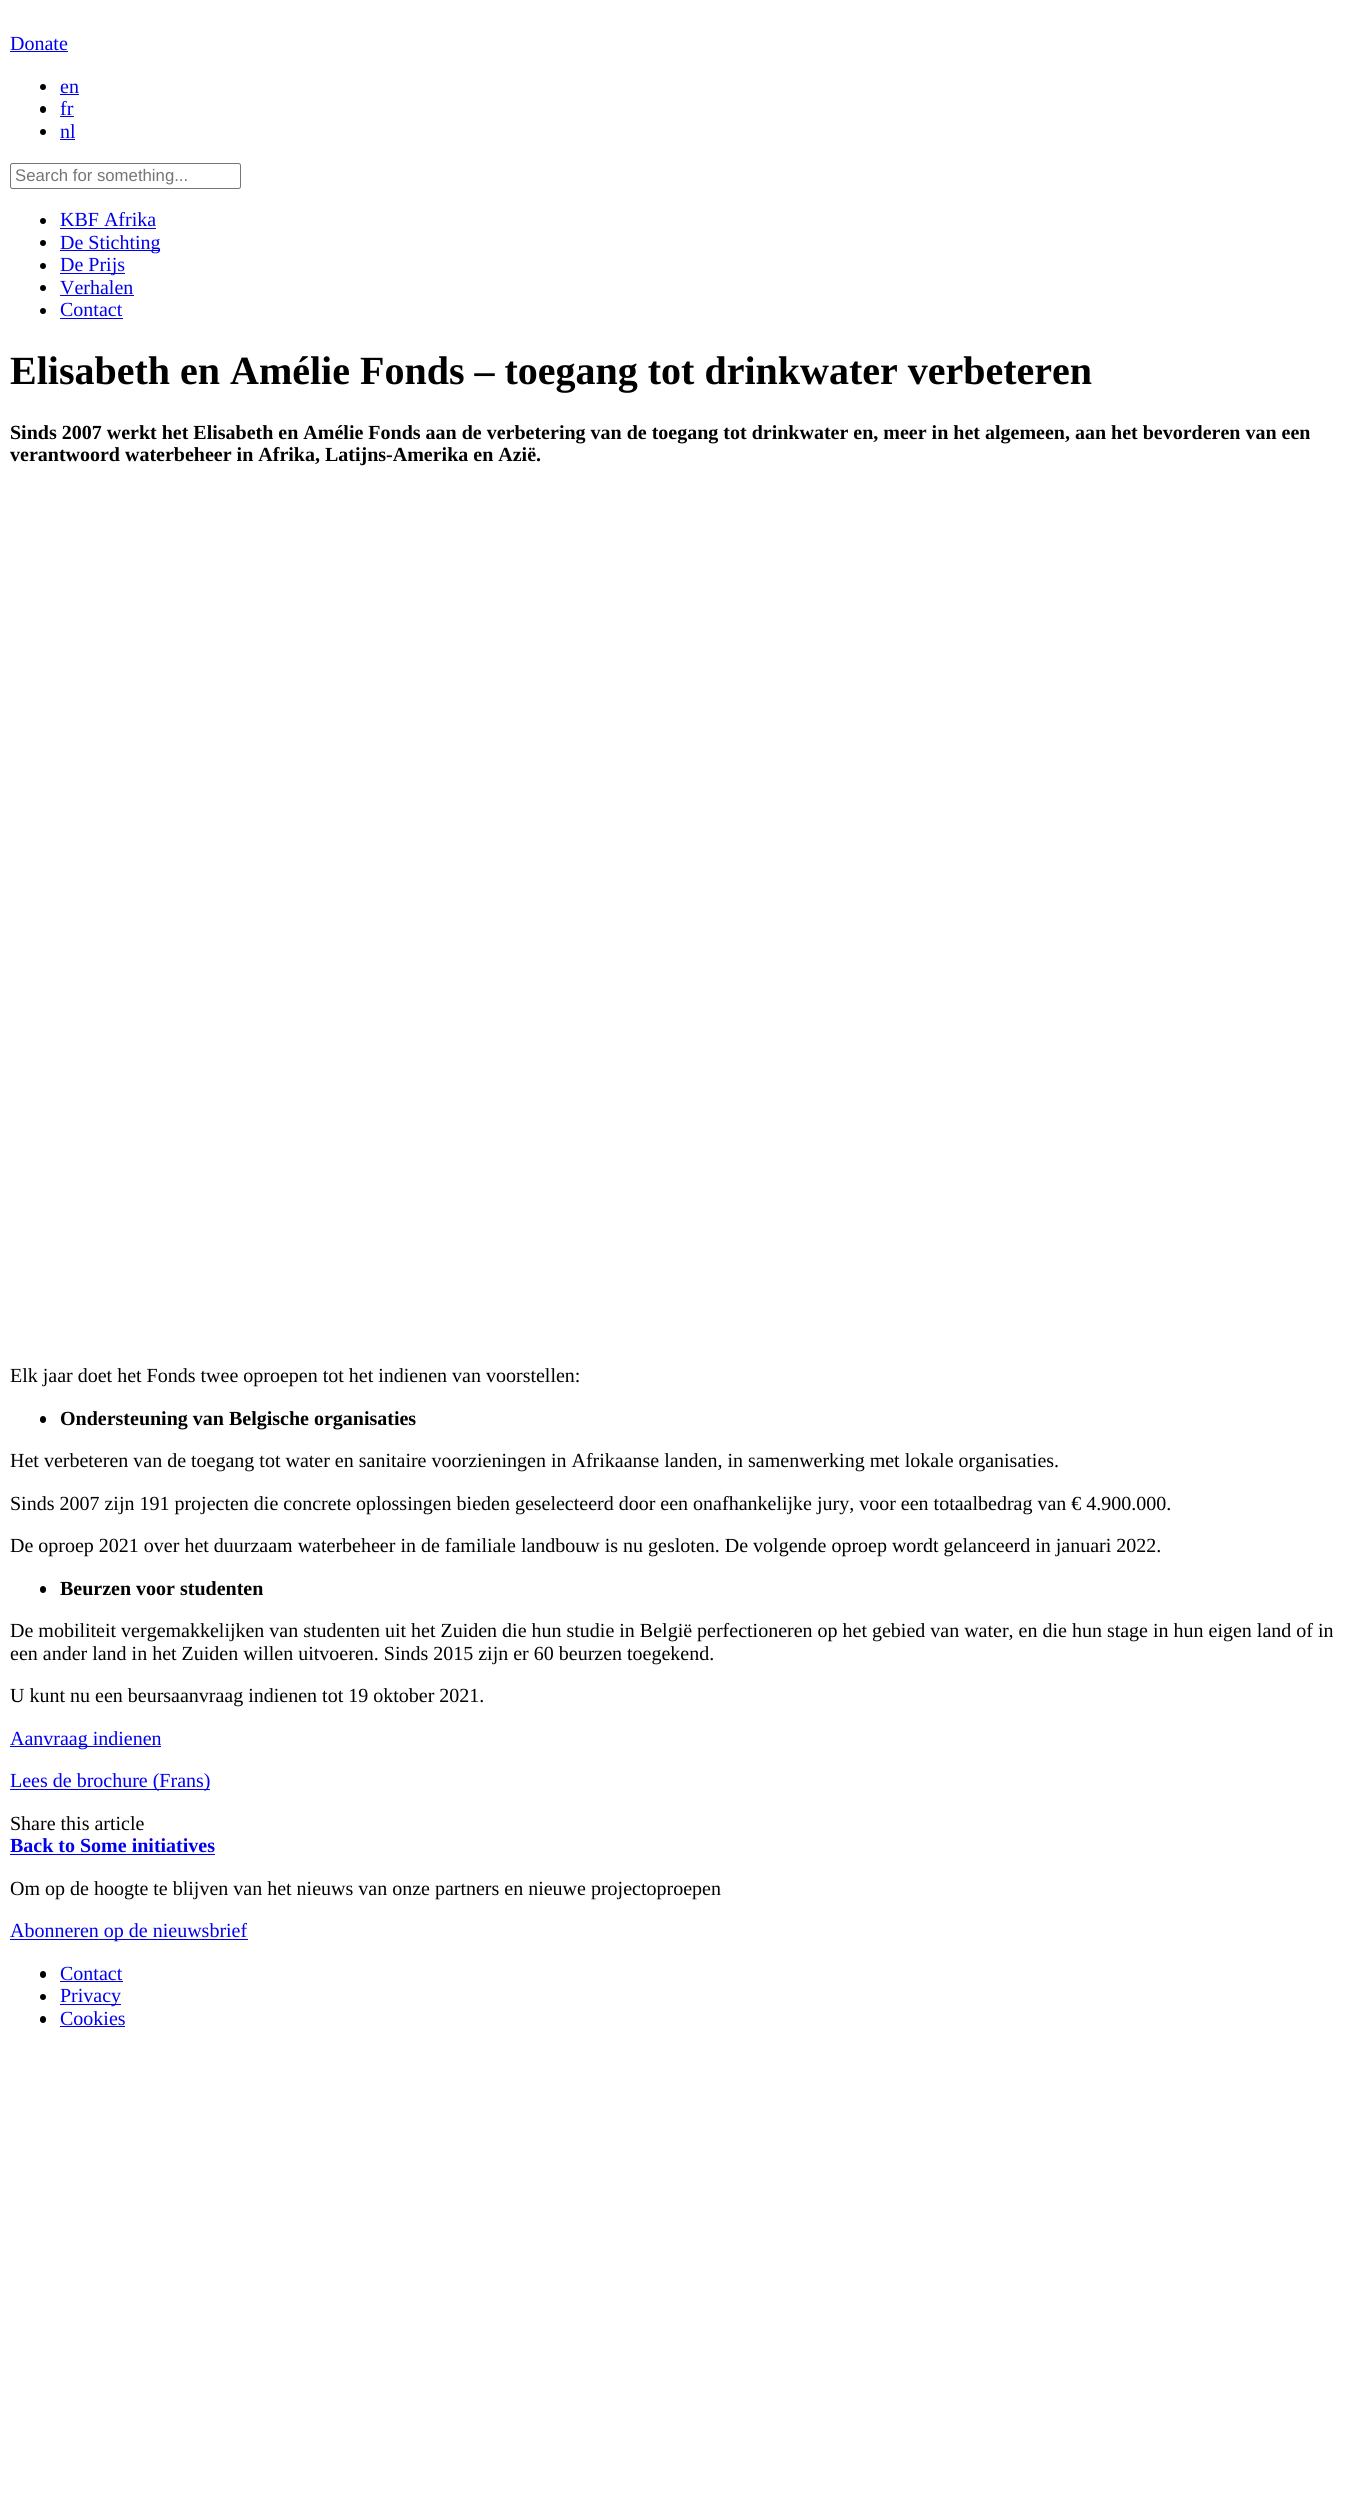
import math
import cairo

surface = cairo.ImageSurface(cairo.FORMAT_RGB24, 1360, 2505)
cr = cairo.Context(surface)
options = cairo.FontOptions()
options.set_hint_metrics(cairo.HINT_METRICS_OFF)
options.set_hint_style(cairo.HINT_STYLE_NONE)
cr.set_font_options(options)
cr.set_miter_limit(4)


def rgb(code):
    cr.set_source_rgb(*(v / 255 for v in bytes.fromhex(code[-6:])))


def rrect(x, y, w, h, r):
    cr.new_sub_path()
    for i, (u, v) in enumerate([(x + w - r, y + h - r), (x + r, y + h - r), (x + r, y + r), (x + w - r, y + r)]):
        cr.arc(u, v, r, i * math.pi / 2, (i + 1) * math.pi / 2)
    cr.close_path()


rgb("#ffffff")
cr.paint()
rgb("#0000ee")
cr.rectangle(10, 51, 58, 1)
cr.fill()
rgb("#000000")
cr.arc(43, 87, 3, 0, 2 * math.pi)
cr.fill()
rgb("#0000ee")
cr.rectangle(60, 94, 19, 1)
cr.fill()
rgb("#000000")
rrect(40, 106, 6, 7, 3)
cr.fill()
rgb("#0000ee")
cr.rectangle(60, 116, 14, 1)
cr.fill()
rgb("#000000")
cr.arc(43, 132, 3, 0, 2 * math.pi)
cr.fill()
rgb("#0000ee")
cr.rectangle(60, 139, 15, 1)
cr.fill()
rrect(10.5, 163.5, 230, 25, 2)
rgb("#767676")
cr.set_line_width(1)
cr.stroke()
rgb("#000000")
cr.arc(43, 221, 3, 0, 2 * math.pi)
cr.fill()
rgb("#0000ee")
cr.rectangle(60, 228, 96, 1)
cr.fill()
rgb("#000000")
cr.arc(43, 243, 3, 0, 2 * math.pi)
cr.fill()
rgb("#0000ee")
cr.rectangle(60, 250, 100, 1)
cr.fill()
rgb("#000000")
cr.arc(43, 266, 3, 0, 2 * math.pi)
cr.fill()
rgb("#0000ee")
cr.rectangle(60, 273, 65, 1)
cr.fill()
rgb("#000000")
cr.arc(43, 288, 3, 0, 2 * math.pi)
cr.fill()
rgb("#0000ee")
cr.rectangle(60, 295, 74, 1)
cr.fill()
rgb("#000000")
cr.arc(43, 311, 3, 0, 2 * math.pi)
cr.fill()
rgb("#0000ee")
cr.rectangle(60, 318, 63, 1)
cr.fill()
rgb("#000000")
rrect(40, 1416, 6, 7, 3)
cr.fill()
rrect(40, 1586, 6, 7, 3)
cr.fill()
for x, y, w, h, color in [
    (10, 1746, 151, 1, "#0000ee"),
    (10, 1789, 200, 1, "#0000ee"),
    (10, 1854, 205, 1, "#0000ee"),
    (10, 1939, 238, 1, "#0000ee"),
]:
    rgb(color)
    cr.rectangle(x, y, w, h)
    cr.fill()
rgb("#000000")
rrect(40, 1971, 6, 7, 3)
cr.fill()
rgb("#0000ee")
cr.rectangle(60, 1981, 63, 1)
cr.fill()
rgb("#000000")
cr.arc(43, 1997, 3, 0, 2 * math.pi)
cr.fill()
rgb("#0000ee")
cr.rectangle(60, 2004, 61, 1)
cr.fill()
rgb("#000000")
rrect(40, 2016, 6, 7, 3)
cr.fill()
rgb("#0000ee")
cr.rectangle(60, 2026, 65, 1)
cr.fill()
cr.select_font_face("Liberation Serif")
cr.set_font_size(20)
for x, y, s in [
    (10, 50, "Donate"),
    (60, 93, "en"),
    (60, 115, "fr"),
    (60, 138, "nl"),
]:
    cr.move_to(x, y)
    cr.show_text(s)
cr.select_font_face("Liberation Sans")
cr.set_font_size(16.75)
rgb("#757575")
cr.move_to(15, 181)
cr.show_text("Search for something...")
cr.select_font_face("Liberation Serif")
cr.set_font_size(20)
rgb("#0000ee")
for x, y, s in [
    (60, 226, "KBF Afrika"),
    (60, 249, "De Stichting"),
    (60, 271, "De Prijs"),
    (60, 294, "Verhalen"),
    (60, 316, "Contact"),
]:
    cr.move_to(x, y)
    cr.show_text(s)
cr.select_font_face("Liberation Serif", cairo.FONT_SLANT_NORMAL, cairo.FONT_WEIGHT_BOLD)
cr.set_font_size(40)
rgb("#000000")
cr.move_to(10, 384)
cr.show_text("Elisabeth en Amélie Fonds – toegang tot drinkwater verbeteren")
cr.set_font_size(20)
cr.move_to(10, 439)
cr.show_text("Sinds 2007 werkt het Elisabeth en Amélie Fonds aan de verbetering van de toegang tot drinkwater en, meer in het algemeen, aan het bevorderen van een")
cr.move_to(10, 461)
cr.show_text("verantwoord waterbeheer in Afrika, Latijns-Amerika en Azië.")
cr.select_font_face("Liberation Serif")
cr.move_to(10, 1382)
cr.show_text("Elk jaar doet het Fonds twee oproepen tot het indienen van voorstellen:")
cr.select_font_face("Liberation Serif", cairo.FONT_SLANT_NORMAL, cairo.FONT_WEIGHT_BOLD)
cr.move_to(60, 1425)
cr.show_text("Ondersteuning van Belgische organisaties")
cr.select_font_face("Liberation Serif")
for x, y, s in [
    (10, 1467, "Het verbeteren van de toegang tot water en sanitaire voorzieningen in Afrikaanse landen, in samenwerking met lokale organisaties."),
    (10, 1510, "Sinds 2007 zijn 191 projecten die concrete oplossingen bieden geselecteerd door een onafhankelijke jury, voor een totaalbedrag van € 4.900.000."),
    (10, 1552, "De oproep 2021 over het duurzaam waterbeheer in de familiale landbouw is nu gesloten. De volgende oproep wordt gelanceerd in januari 2022."),
]:
    cr.move_to(x, y)
    cr.show_text(s)
cr.select_font_face("Liberation Serif", cairo.FONT_SLANT_NORMAL, cairo.FONT_WEIGHT_BOLD)
cr.move_to(60, 1595)
cr.show_text("Beurzen voor studenten")
cr.select_font_face("Liberation Serif")
for x, y, s in [
    (10, 1637, "De mobiliteit vergemakkelijken van studenten uit het Zuiden die hun studie in België perfectioneren op het gebied van water, en die hun stage in hun eigen land of in"),
    (10, 1660, "een ander land in het Zuiden willen uitvoeren. Sinds 2015 zijn er 60 beurzen toegekend."),
    (10, 1702, "U kunt nu een beursaanvraag indienen tot 19 oktober 2021."),
]:
    cr.move_to(x, y)
    cr.show_text(s)
rgb("#0000ee")
cr.move_to(10, 1745)
cr.show_text("Aanvraag indienen")
cr.move_to(10, 1787)
cr.show_text("Lees de brochure (Frans)")
rgb("#000000")
cr.move_to(10, 1830)
cr.show_text("Share this article")
cr.select_font_face("Liberation Serif", cairo.FONT_SLANT_NORMAL, cairo.FONT_WEIGHT_BOLD)
rgb("#0000ee")
cr.move_to(10, 1852)
cr.show_text("Back to Some initiatives")
cr.select_font_face("Liberation Serif")
rgb("#000000")
cr.move_to(10, 1895)
cr.show_text("Om op de hoogte te blijven van het nieuws van onze partners en nieuwe projectoproepen")
rgb("#0000ee")
for x, y, s in [
    (10, 1937, "Abonneren op de nieuwsbrief"),
    (60, 1980, "Contact"),
    (60, 2002, "Privacy"),
    (60, 2025, "Cookies"),
]:
    cr.move_to(x, y)
    cr.show_text(s)
surface.write_to_png("page.png")
